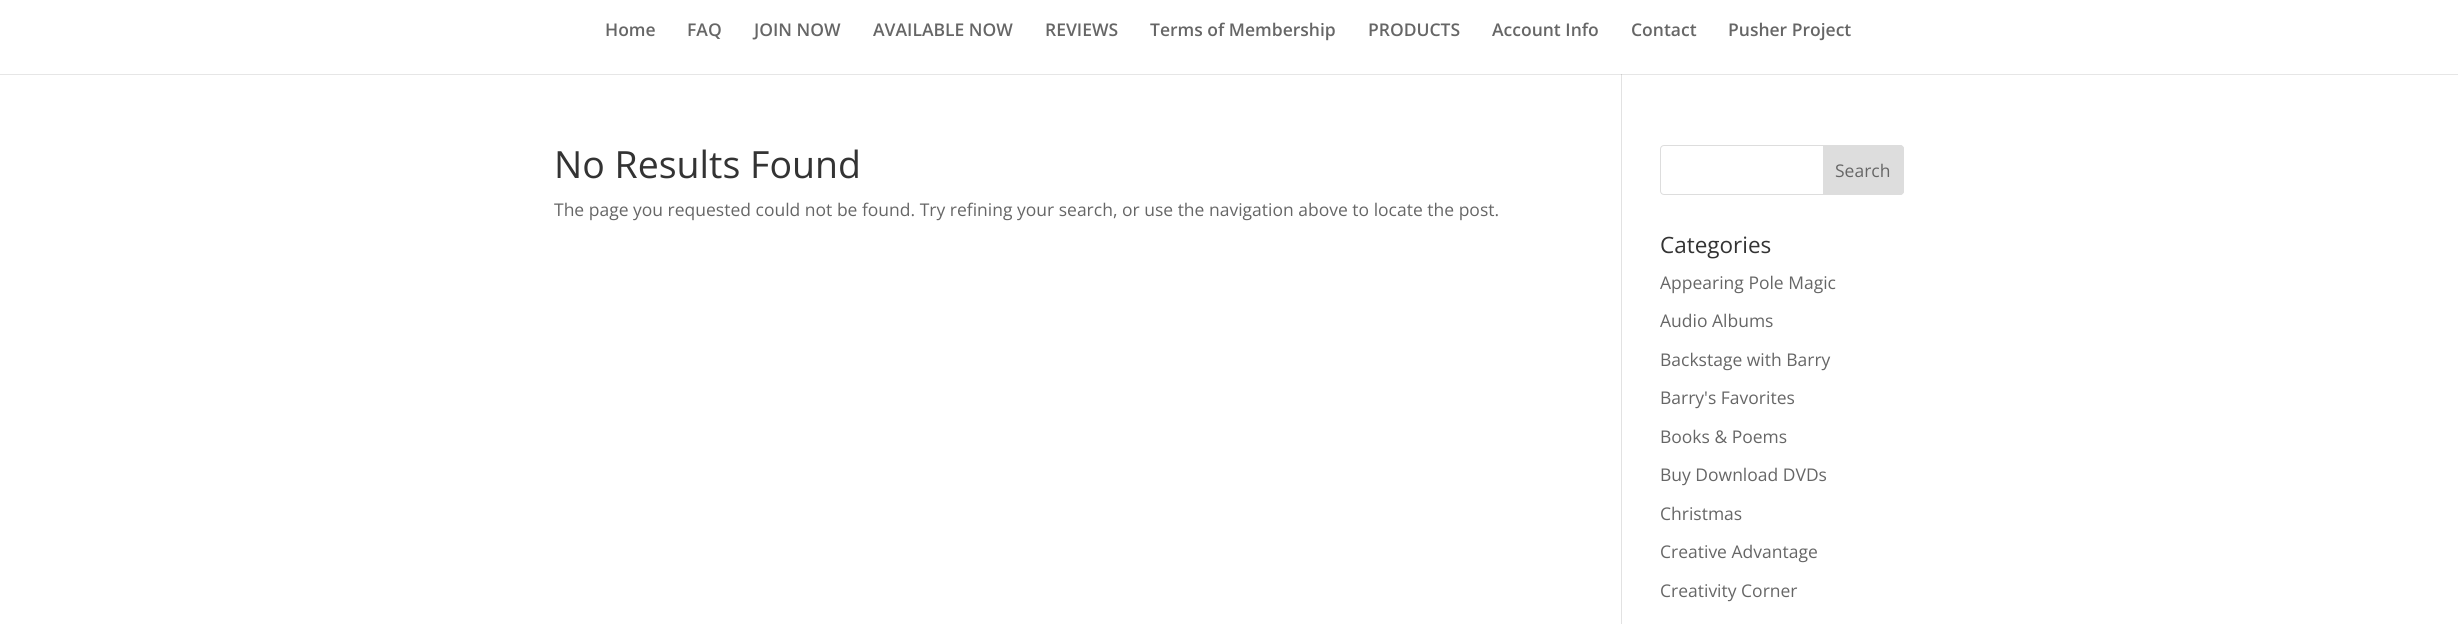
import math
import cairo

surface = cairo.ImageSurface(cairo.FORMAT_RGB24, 2458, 624)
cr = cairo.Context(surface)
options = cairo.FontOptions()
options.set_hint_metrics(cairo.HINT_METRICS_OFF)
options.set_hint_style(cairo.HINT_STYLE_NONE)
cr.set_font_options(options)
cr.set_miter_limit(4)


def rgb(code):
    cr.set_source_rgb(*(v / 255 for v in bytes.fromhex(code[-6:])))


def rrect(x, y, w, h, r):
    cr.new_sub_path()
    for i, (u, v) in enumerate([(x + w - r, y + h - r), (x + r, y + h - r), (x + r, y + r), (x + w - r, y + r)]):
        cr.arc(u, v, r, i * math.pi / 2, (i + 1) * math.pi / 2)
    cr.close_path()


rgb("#ffffff")
cr.paint()
rgb("#e2e2e2")
cr.rectangle(1621, 73, 1, 551)
cr.fill()
cr.set_source_rgba(0, 0, 0, 0.1)
cr.new_path()
cr.move_to(0, 74)
cr.line_to(0, 75)
cr.line_to(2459, 75)
cr.line_to(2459, 1)
cr.line_to(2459, 74)
cr.close_path()
cr.fill()
rgb("#ffffff")
cr.rectangle(1621, 73, 1, 1)
cr.fill()
rrect(1660.5, 145.5, 243, 49, 3.5)
rgb("#dddddd")
cr.set_line_width(1)
cr.stroke()
cr.new_path()
cr.move_to(1823.5, 145.5)
cr.line_to(1900, 145.5)
cr.curve_to(1902, 145.5, 1903.5, 147, 1903.5, 149)
cr.line_to(1903.5, 191)
cr.curve_to(1903.5, 193, 1902, 194.5, 1900, 194.5)
cr.line_to(1823.5, 194.5)
cr.close_path()
cr.fill_preserve()
cr.stroke()
cr.select_font_face("Open Sans SemiBold")
cr.set_font_size(17.5)
rgb("#666666")
for x, y, s in [
    (605, 36, "Home"),
    (687, 36, "FAQ"),
    (754, 36, "JOIN NOW"),
    (873, 36, "AVAILABLE NOW"),
    (1045, 36, "REVIEWS"),
    (1150, 36, "Terms of Membership"),
    (1368, 36, "PRODUCTS"),
    (1492, 36, "Account Info"),
    (1631, 36, "Contact"),
    (1728, 36, "Pusher Project"),
]:
    cr.move_to(x, y)
    cr.show_text(s)
cr.select_font_face("Open Sans")
cr.set_font_size(37.5)
rgb("#333333")
cr.move_to(554, 178)
cr.show_text("No Results Found")
cr.set_font_size(17.5)
rgb("#666666")
cr.move_to(554, 216)
cr.show_text("The page you requested could not be found. Try refining your search, or use the navigation above to locate the post.")
cr.move_to(1835, 177)
cr.show_text("Search")
cr.set_font_size(22.5)
rgb("#333333")
cr.move_to(1660, 253)
cr.show_text("Categories")
cr.set_font_size(17.5)
rgb("#666666")
for x, y, s in [
    (1660, 289, "Appearing Pole Magic"),
    (1660, 327, "Audio Albums"),
    (1660, 366, "Backstage with Barry"),
    (1660, 404, "Barry's Favorites"),
    (1660, 443, "Books & Poems"),
    (1660, 481, "Buy Download DVDs"),
    (1660, 520, "Christmas"),
    (1660, 558, "Creative Advantage"),
    (1660, 597, "Creativity Corner"),
]:
    cr.move_to(x, y)
    cr.show_text(s)
surface.write_to_png("page.png")
